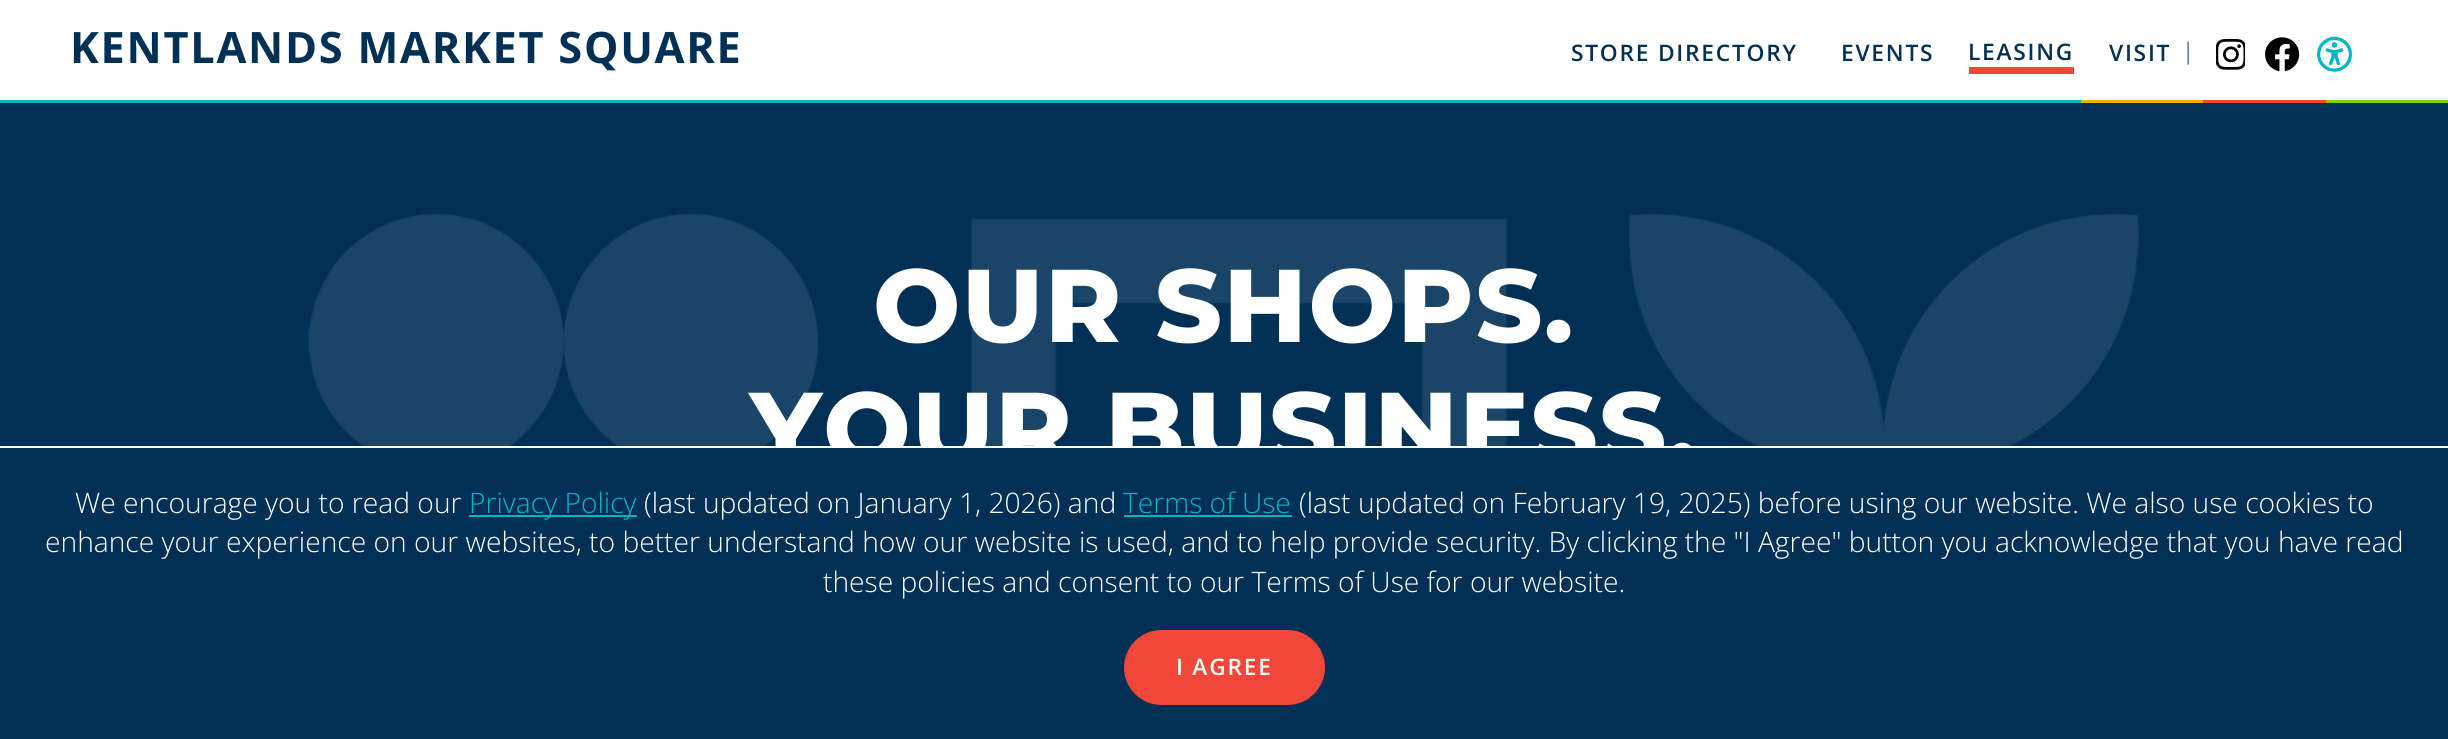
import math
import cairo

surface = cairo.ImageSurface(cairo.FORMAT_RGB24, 2448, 739)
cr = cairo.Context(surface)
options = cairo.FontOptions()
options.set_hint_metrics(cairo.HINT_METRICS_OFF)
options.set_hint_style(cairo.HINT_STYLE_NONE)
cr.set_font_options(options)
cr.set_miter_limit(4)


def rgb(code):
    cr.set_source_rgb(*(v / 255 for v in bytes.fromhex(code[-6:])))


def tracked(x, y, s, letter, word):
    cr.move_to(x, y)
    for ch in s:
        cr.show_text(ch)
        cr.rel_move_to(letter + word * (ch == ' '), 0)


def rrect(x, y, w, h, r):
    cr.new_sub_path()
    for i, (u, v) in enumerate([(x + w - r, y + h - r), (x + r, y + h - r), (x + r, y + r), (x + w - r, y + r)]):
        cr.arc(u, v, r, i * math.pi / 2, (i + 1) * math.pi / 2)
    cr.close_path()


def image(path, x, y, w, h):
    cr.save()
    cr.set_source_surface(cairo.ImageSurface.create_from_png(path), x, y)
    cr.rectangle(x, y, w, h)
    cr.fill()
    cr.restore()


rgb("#ffffff")
cr.paint()
rgb("#ef473a")
cr.rectangle(1969, 67, 105, 7)
cr.fill()
image("img/1.png", 2216, 38, 29, 32)
image("img/2.png", 2265, 37, 35, 35)
image("img/3.png", 2317, 36, 35, 36)
for x, y, w, h, color in [
    (2326, 100, 122, 3, "#7ed600"),
    (2203, 100, 123, 3, "#ef473a"),
    (2081, 100, 122, 3, "#f0b300"),
    (0, 100, 2081, 3, "#00b6c4"),
    (0, 103, 2448, 343, "#003055"),
]:
    rgb(color)
    cr.rectangle(x, y, w, h)
    cr.fill()
image("img/4.png", 308, 214, 1831, 232)
cr.select_font_face("Open Sans", cairo.FONT_SLANT_NORMAL, cairo.FONT_WEIGHT_BOLD)
cr.set_font_size(43.3)
tracked(70, 63, "KENTLANDS MARKET SQUARE", 1.75, 0)
cr.select_font_face("Open Sans SemiBold")
cr.set_font_size(22.75)
for x, y, s in [
    (1571, 61, "STORE DIRECTORY"),
    (1841, 61, "EVENTS"),
    (1968, 60, "LEASING"),
    (2109, 61, "VISIT"),
]:
    tracked(x, y, s, 1.75, 0)
cr.select_font_face("Open Sans Light")
cr.move_to(2182, 59)
cr.show_text("|")
cr.select_font_face("Montserrat ExtraBold")
cr.set_font_size(103.25)
rgb("#ffffff")
tracked(873, 342, "OUR SHOPS.", 1.75, 0)
tracked(750, 465, "YOUR BUSINESS.", 1.75, 0)
rgb("#003055")
cr.rectangle(0, 448, 2448, 291)
cr.fill()
cr.select_font_face("Open Sans Light")
cr.set_font_size(28.2)
rgb("#ffffff")
cr.move_to(75, 513)
cr.show_text("We encourage you to read our")
rgb("#00b6c4")
cr.rectangle(469, 515, 168, 2)
cr.fill()
cr.move_to(469, 513)
cr.show_text("Privacy Policy")
rgb("#ffffff")
cr.move_to(644, 513)
cr.show_text("(last updated on January 1, 2026) and")
rgb("#00b6c4")
cr.move_to(1123, 513)
cr.show_text("Terms of Use")
cr.rectangle(1124, 515, 168, 2)
cr.fill()
rgb("#ffffff")
for x, y, s in [
    (1299, 513, "(last updated on February 19, 2025) before using our website. We also use cookies to"),
    (45, 552, "enhance your experience on our websites, to better understand how our website is used, and to help provide security. By clicking the \"I Agree\" button you acknowledge that you have read"),
    (823, 592, "these policies and consent to our Terms of Use for our website."),
]:
    cr.move_to(x, y)
    cr.show_text(s)
rgb("#ef473a")
rrect(1124, 630, 201, 75, 37.5)
cr.fill()
cr.select_font_face("Open Sans SemiBold")
cr.set_font_size(22.75)
rgb("#ffffff")
tracked(1176, 675, "I AGREE", 1.75, 0)
surface.write_to_png("page.png")
